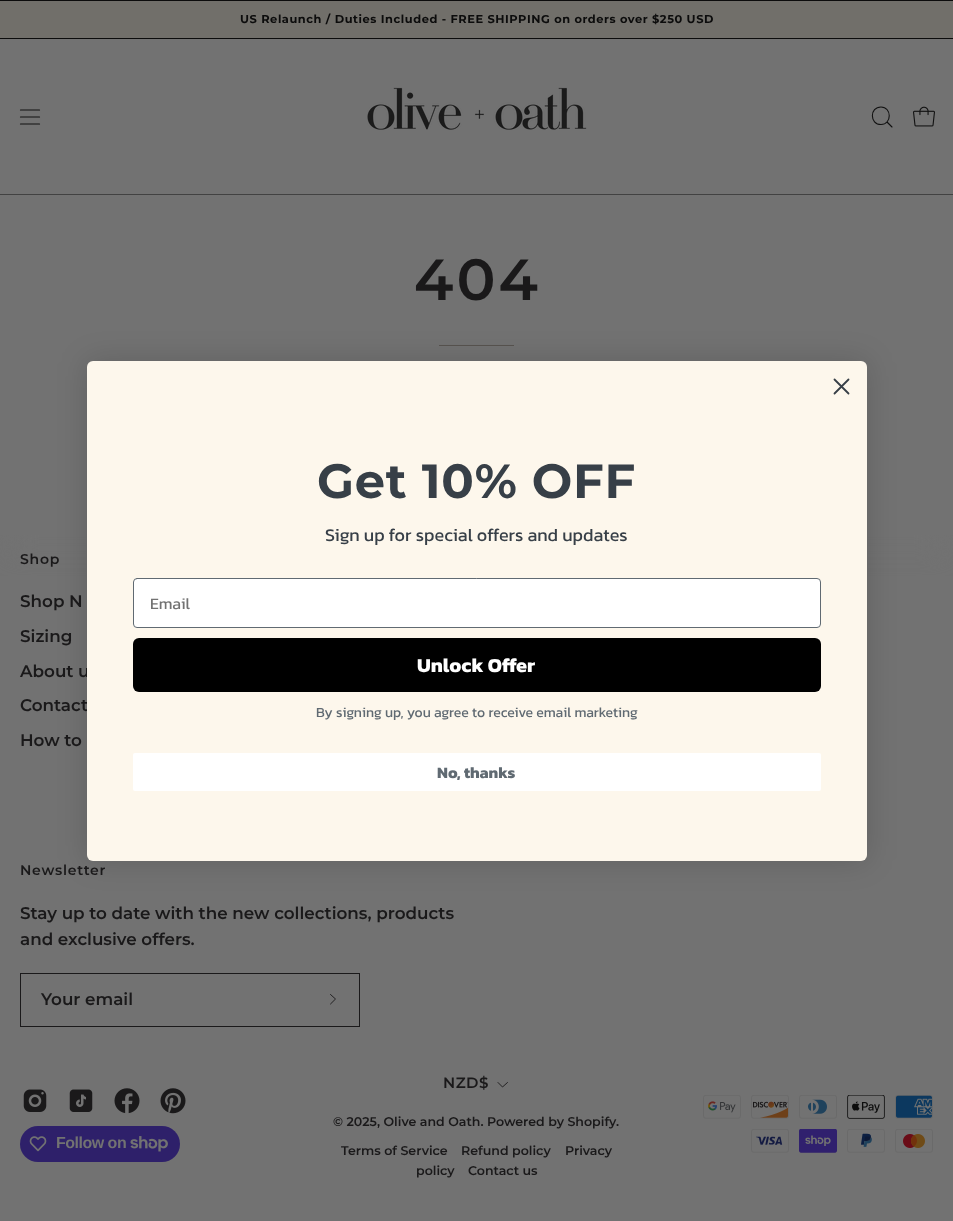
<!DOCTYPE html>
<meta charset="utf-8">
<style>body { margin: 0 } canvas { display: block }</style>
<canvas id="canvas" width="953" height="1221"></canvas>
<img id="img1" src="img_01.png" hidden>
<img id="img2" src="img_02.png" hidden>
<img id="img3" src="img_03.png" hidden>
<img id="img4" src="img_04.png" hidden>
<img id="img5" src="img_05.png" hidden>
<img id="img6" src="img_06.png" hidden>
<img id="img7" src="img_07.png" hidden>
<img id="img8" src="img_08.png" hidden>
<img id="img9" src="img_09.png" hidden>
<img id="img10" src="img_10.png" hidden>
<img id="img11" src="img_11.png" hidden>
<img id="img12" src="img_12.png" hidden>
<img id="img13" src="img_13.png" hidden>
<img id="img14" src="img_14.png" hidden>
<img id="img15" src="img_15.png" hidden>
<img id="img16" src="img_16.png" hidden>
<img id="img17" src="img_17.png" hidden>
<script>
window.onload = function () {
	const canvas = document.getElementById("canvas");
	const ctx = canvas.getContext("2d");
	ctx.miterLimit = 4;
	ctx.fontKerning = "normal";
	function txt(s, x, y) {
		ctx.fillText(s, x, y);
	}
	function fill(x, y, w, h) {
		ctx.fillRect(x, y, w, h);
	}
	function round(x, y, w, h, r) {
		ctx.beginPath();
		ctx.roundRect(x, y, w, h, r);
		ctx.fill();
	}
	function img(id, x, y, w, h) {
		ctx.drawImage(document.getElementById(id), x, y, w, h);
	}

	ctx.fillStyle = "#727272";
	fill(0, 0, 953, 1221);
	ctx.fillStyle = "#716F6A";
	fill(0, 1, 953, 37);
	ctx.fillStyle = "#0C0C0C";
	fill(0, 0, 953, 1);
	fill(0, 38, 953, 1);
	ctx.beginPath();
	ctx.moveTo(20.5, 117);
	ctx.lineTo(39.5, 117);
	ctx.moveTo(20.5, 110);
	ctx.lineTo(39.5, 110);
	ctx.moveTo(20.5, 124);
	ctx.lineTo(39.5, 124);
	ctx.strokeStyle = "#111111";
	ctx.lineWidth = 1.2;
	ctx.lineCap = "round";
	ctx.lineJoin = "round";
	ctx.stroke();
	img("img1", 367, 87, 220, 43);
	ctx.beginPath();
	ctx.moveTo(881, 124.5);
	ctx.bezierCurveTo(892, 124.5, 892, 107, 881, 107);
	ctx.bezierCurveTo(869.5, 107, 869.5, 124.5, 881, 124.5);
	ctx.closePath();
	ctx.moveTo(887, 122);
	ctx.lineTo(892, 127);
	ctx.lineWidth = 1.1;
	ctx.stroke();
	img("img2", 913, 106, 22, 21);
	ctx.save();
	ctx.beginPath();
	ctx.rect(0, 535, 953, 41);
	ctx.clip();
	ctx.fillStyle = "#727272";
	ctx.filter = "blur(12.5px)";
	ctx.beginPath();
	ctx.rect(10, 229, 933, 321);
	ctx.fill();
	ctx.filter = "none";
	ctx.restore();
	ctx.fillStyle = "#424242";
	fill(0, 194, 953, 1);
	ctx.fillStyle = "#57534F";
	fill(439, 345, 75, 1);
	ctx.fillStyle = "rgba(0, 0, 0, 0.15)";
	ctx.filter = "blur(15px)";
	ctx.beginPath();
	ctx.roundRect(87, 361, 780, 500, 6);
	ctx.fill();
	ctx.filter = "none";
	ctx.fillStyle = "#1A191A";
	fill(20, 973, 340, 1);
	fill(20, 1026, 286, 1);
	fill(20, 973, 1, 54);
	fill(359, 973, 1, 54);
	fill(306, 1026, 54, 1);
	ctx.beginPath();
	ctx.moveTo(330.5, 994.5);
	ctx.lineTo(335.5, 999);
	ctx.lineTo(330.5, 1004);
	ctx.strokeStyle = "#1A191A";
	ctx.lineWidth = 0.9;
	ctx.stroke();
	img("img3", 23, 1089, 24, 23);
	img("img4", 69, 1089, 24, 23);
	img("img5", 114, 1088, 26, 26);
	img("img6", 160, 1088, 26, 26);
	ctx.fillStyle = "#2E206A";
	round(20, 1126, 160, 36, 18);
	img("img7", 29, 1136, 18, 16);
	img("img8", 130, 1136, 38, 16);
	ctx.beginPath();
	ctx.moveTo(507.5, 1082.5);
	ctx.lineTo(502.5, 1087);
	ctx.lineTo(498, 1082.5);
	ctx.stroke();
	img("img9", 703, 1095, 38, 24);
	img("img10", 751, 1095, 38, 24);
	img("img11", 799, 1095, 38, 24);
	img("img12", 847, 1095, 38, 24);
	img("img13", 895, 1095, 38, 24);
	img("img14", 751, 1129, 38, 24);
	img("img15", 799, 1129, 38, 24);
	img("img16", 847, 1129, 38, 24);
	img("img17", 895, 1129, 38, 24);
	ctx.letterSpacing = "0.57px";
	ctx.font = "bold 11.4px Montserrat";
	ctx.fillStyle = "#0C0C0C";
	txt("US Relaunch / Duties Included - FREE SHIPPING on orders over $250 USD", 240, 23);
	ctx.letterSpacing = "3px";
	ctx.font = "600 58px Montserrat";
	ctx.fillStyle = "#1A191A";
	txt("404", 414, 300);
	ctx.letterSpacing = "0.75px";
	ctx.font = "600 14px Montserrat";
	txt("Shop", 20, 564);
	ctx.letterSpacing = "0px";
	ctx.font = "600 16.8px Montserrat";
	txt("Shop N", 20, 607);
	txt("Sizing", 20, 642);
	txt("About u", 20, 677);
	txt("Contact", 20, 711);
	ctx.fillStyle = "#FDF7EC";
	round(87, 361, 780, 500, 6);
	ctx.beginPath();
	ctx.moveTo(834.5, 379.5);
	ctx.lineTo(848.5, 393.5);
	ctx.moveTo(834.5, 393.5);
	ctx.lineTo(848.5, 379.5);
	ctx.closePath();
	ctx.strokeStyle = "#373F47";
	ctx.lineWidth = 1.8;
	ctx.stroke();
	ctx.fillStyle = "#FFFFFF";
	round(133, 753, 688, 38, 2);
	ctx.font = "bold 16px Kanit";
	ctx.fillStyle = "#606A72";
	txt("No, thanks", 437, 778);
	ctx.font = "14px Kanit";
	txt("By signing up, you agree to receive email marketing", 316, 717);
	ctx.fillStyle = "#000000";
	round(133, 638, 688, 54, 6);
	ctx.font = "bold 20px Kanit";
	ctx.fillStyle = "#FFFFFF";
	txt("Unlock Offer", 417, 672);
	ctx.beginPath();
	ctx.roundRect(133.5, 578.5, 687, 49, 3.5);
	ctx.fill();
	ctx.strokeStyle = "#606A72";
	ctx.lineWidth = 1;
	ctx.lineJoin = "miter";
	ctx.stroke();
	ctx.font = "16px Kanit";
	ctx.fillStyle = "#727272";
	txt("Email", 150, 609);
	ctx.font = "18px Kanit";
	ctx.fillStyle = "#373F47";
	txt("Sign up for special offers and updates", 325, 541);
	ctx.letterSpacing = "0.75px";
	ctx.font = "bold 48px Montserrat";
	txt("Get 10% OFF", 317, 498);
	ctx.letterSpacing = "0px";
	ctx.font = "600 16.8px Montserrat";
	ctx.fillStyle = "#1A191A";
	txt("How to", 20, 746);
	ctx.letterSpacing = "0.75px";
	ctx.font = "600 14px Montserrat";
	txt("Newsletter", 20, 875);
	ctx.letterSpacing = "0px";
	ctx.font = "600 16.8px Montserrat";
	txt("Stay up to date with the new collections, products", 20, 919);
	txt("and exclusive offers.", 20, 945);
	txt("Your email", 41, 1005);
	ctx.letterSpacing = "-0.5px";
	ctx.font = "bold 16px Liberation Sans";
	ctx.fillStyle = "#727272";
	txt("Follow on", 56, 1148);
	ctx.letterSpacing = "0.5px";
	ctx.font = "600 15px Montserrat";
	ctx.fillStyle = "#1A191A";
	txt("NZD$", 443, 1088);
	ctx.letterSpacing = "0px";
	ctx.font = "600 12.6px Montserrat";
	txt("© 2025, Olive and Oath. Powered by Shopify", 333, 1126);
	txt(".", 616, 1126);
	txt("Terms of Service", 341, 1155);
	txt("Refund policy", 461, 1155);
	txt("Privacy", 565, 1155);
	txt("policy", 416, 1175);
	txt("Contact us", 468, 1175);
};
</script>
